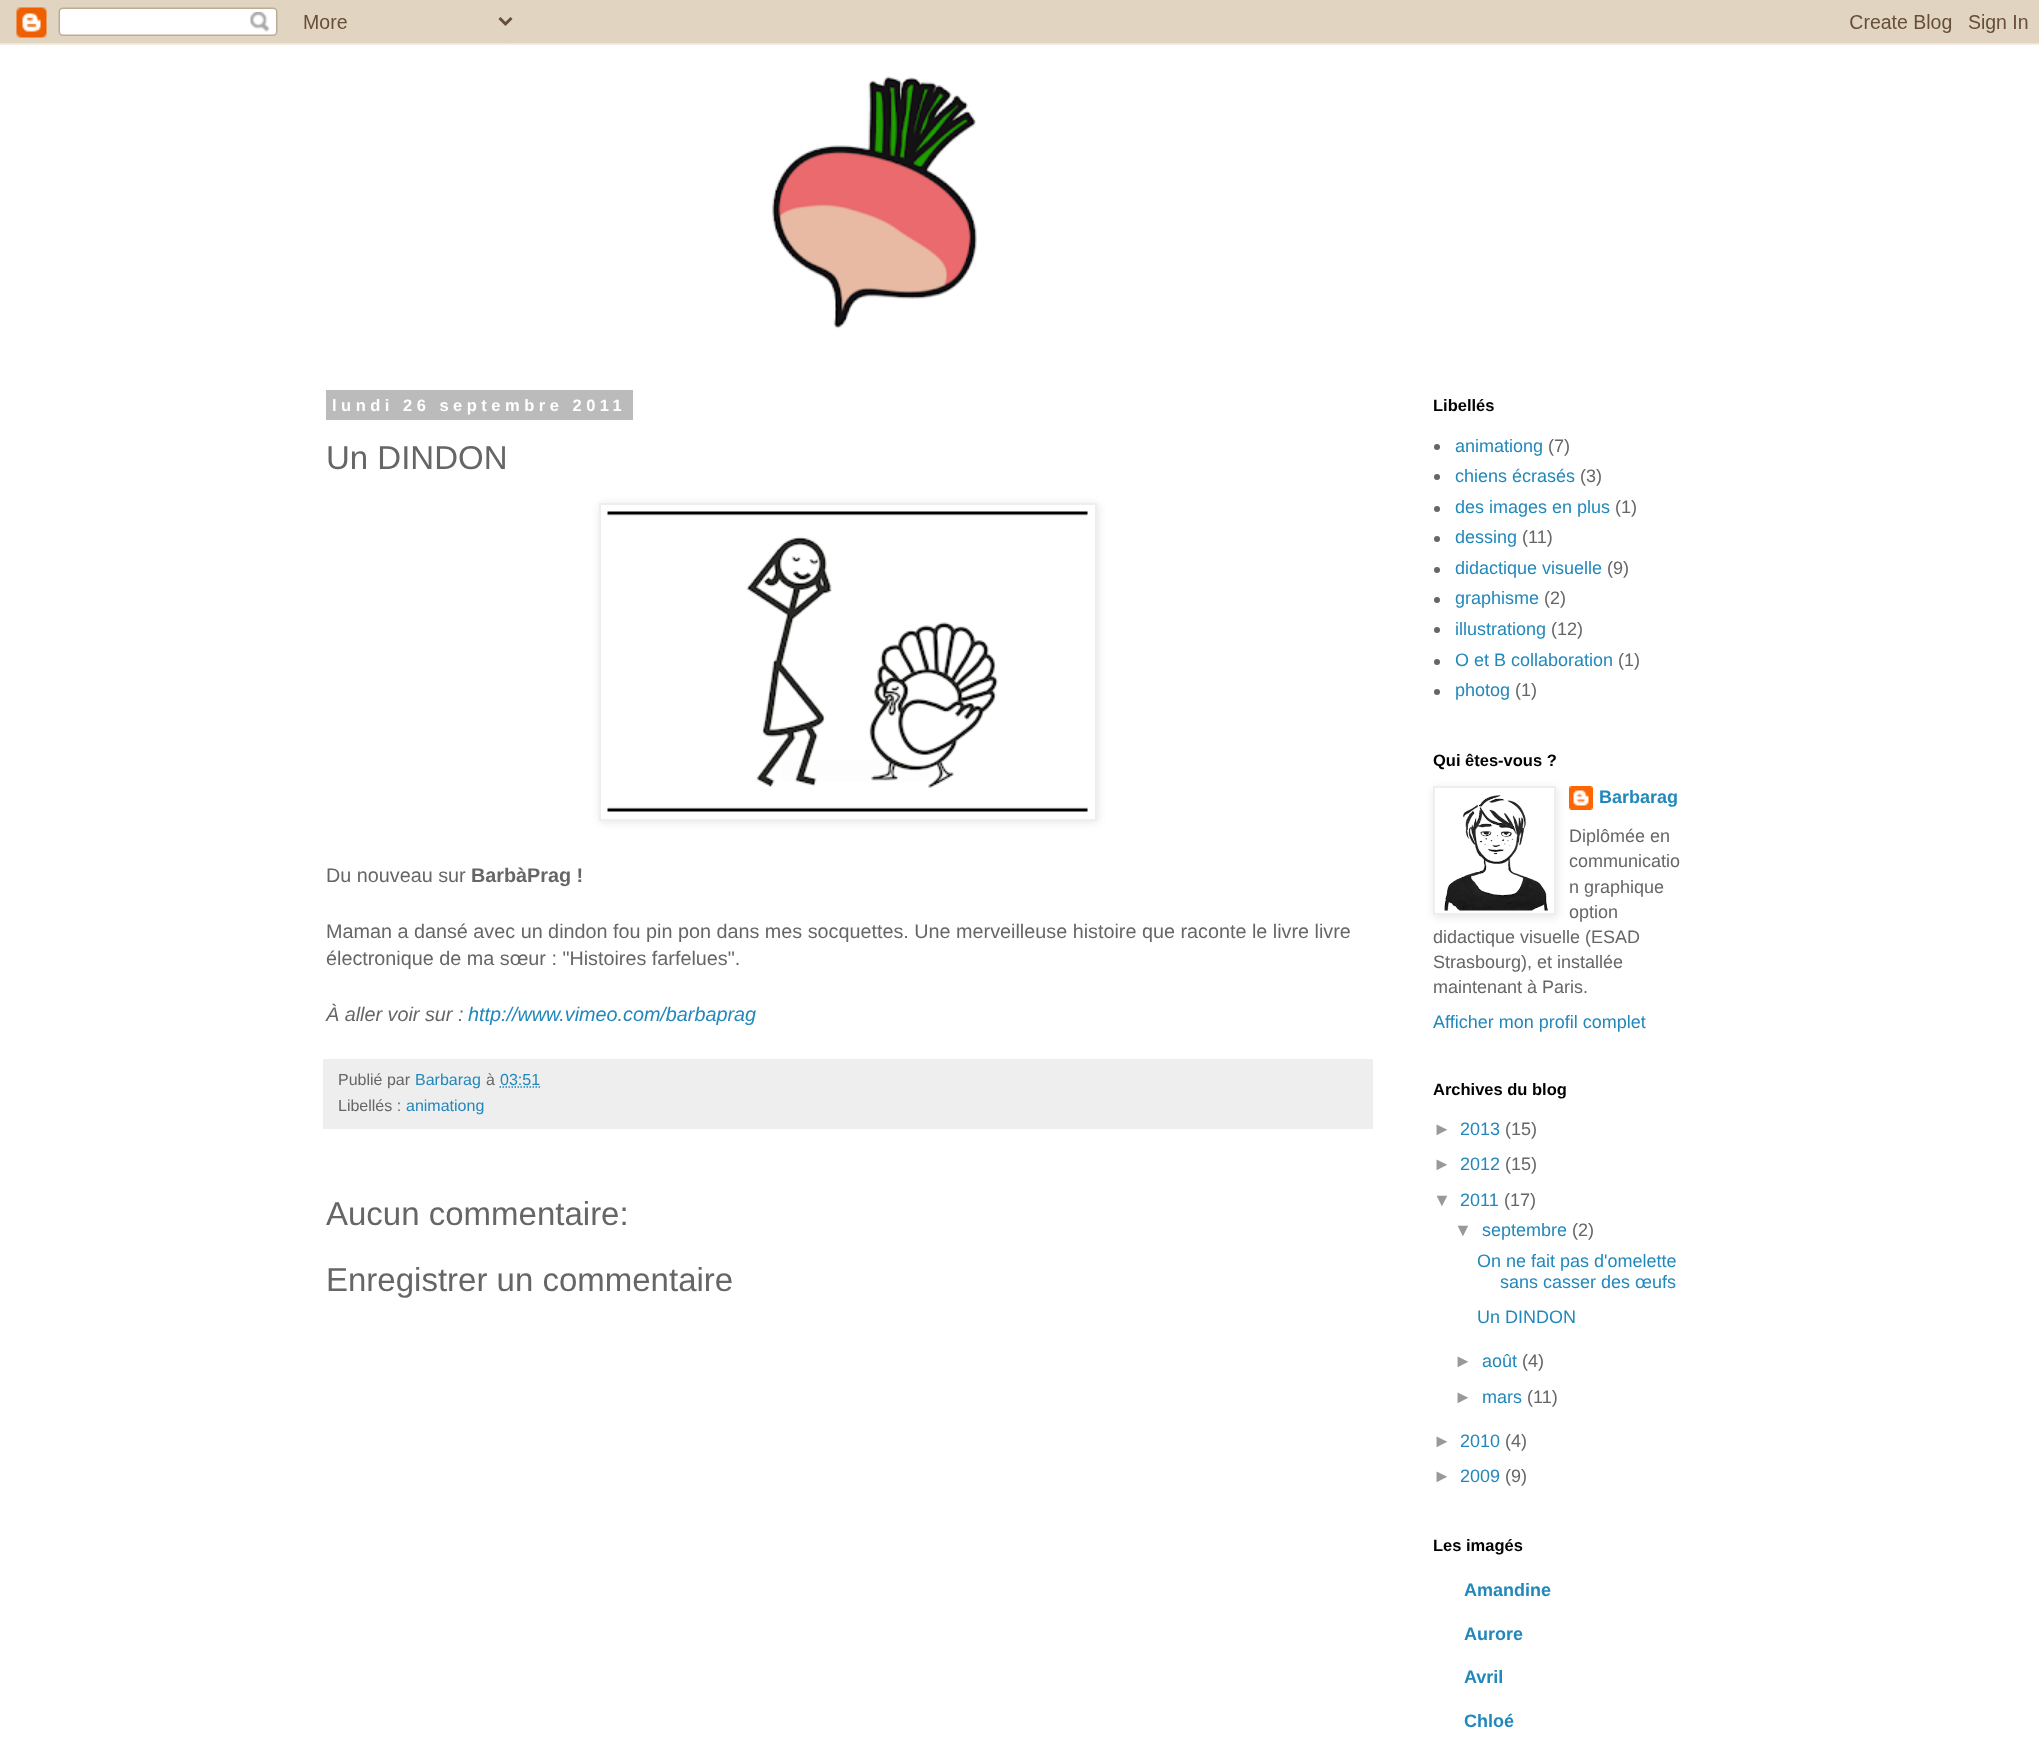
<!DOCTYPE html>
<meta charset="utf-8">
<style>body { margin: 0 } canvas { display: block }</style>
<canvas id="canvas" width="2039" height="1763"></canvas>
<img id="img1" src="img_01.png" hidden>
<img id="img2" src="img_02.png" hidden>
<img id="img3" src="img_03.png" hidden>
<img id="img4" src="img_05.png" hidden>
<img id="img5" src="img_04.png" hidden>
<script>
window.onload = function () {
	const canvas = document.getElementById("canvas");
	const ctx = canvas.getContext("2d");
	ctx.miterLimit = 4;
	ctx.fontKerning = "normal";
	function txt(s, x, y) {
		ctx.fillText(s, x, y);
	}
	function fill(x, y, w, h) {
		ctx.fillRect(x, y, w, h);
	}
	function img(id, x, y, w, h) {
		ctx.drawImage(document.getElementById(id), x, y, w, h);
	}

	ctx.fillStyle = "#FFFFFF";
	fill(0, 0, 2039, 1763);
	img("img1", 0, 0, 2039, 45);
	img("img2", 772, 76, 205, 253);
	ctx.fillStyle = "#BBBBBB";
	fill(326, 390, 307, 30);
	ctx.fillStyle = "rgba(0, 0, 0, 0.1)";
	ctx.filter = "blur(4px)";
	ctx.beginPath();
	ctx.rect(600, 504, 498, 318);
	ctx.fill();
	ctx.filter = "none";
	ctx.fillStyle = "#FFFFFF";
	ctx.beginPath();
	ctx.rect(600, 504, 496, 316);
	ctx.fill();
	ctx.strokeStyle = "#EEEEEE";
	ctx.lineWidth = 2;
	ctx.stroke();
	img("img3", 607, 511, 481, 301);
	ctx.fillStyle = "#EEEEEE";
	fill(323, 1059, 1050, 70);
	ctx.beginPath();
	ctx.moveTo(499.5, 1087);
	ctx.lineTo(540, 1087);
	ctx.strokeStyle = "#2288BB";
	ctx.lineWidth = 1.5;
	ctx.setLineDash([1.5, 1.5]);
	ctx.stroke();
	ctx.fillStyle = "#666666";
	ctx.beginPath();
	ctx.arc(1437, 447, 3, 0, Math.PI * 2);
	ctx.fill();
	ctx.beginPath();
	ctx.arc(1437, 477, 3, 0, Math.PI * 2);
	ctx.fill();
	ctx.beginPath();
	ctx.arc(1437, 509, 3, 0, Math.PI * 2);
	ctx.fill();
	ctx.beginPath();
	ctx.arc(1437, 539, 3, 0, Math.PI * 2);
	ctx.fill();
	ctx.beginPath();
	ctx.arc(1437, 570, 3, 0, Math.PI * 2);
	ctx.fill();
	ctx.beginPath();
	ctx.arc(1437, 600, 3, 0, Math.PI * 2);
	ctx.fill();
	ctx.beginPath();
	ctx.arc(1437, 630, 3, 0, Math.PI * 2);
	ctx.fill();
	ctx.beginPath();
	ctx.arc(1437, 662, 3, 0, Math.PI * 2);
	ctx.fill();
	ctx.beginPath();
	ctx.arc(1437, 692, 3, 0, Math.PI * 2);
	ctx.fill();
	img("img4", 1569, 786, 24, 24);
	ctx.fillStyle = "rgba(0, 0, 0, 0.1)";
	ctx.filter = "blur(4px)";
	ctx.beginPath();
	ctx.rect(1434, 788, 123, 129);
	ctx.fill();
	ctx.filter = "none";
	ctx.fillStyle = "#FFFFFF";
	ctx.beginPath();
	ctx.rect(1434, 787, 121, 127);
	ctx.fill();
	ctx.strokeStyle = "#EEEEEE";
	ctx.lineWidth = 2;
	ctx.setLineDash([]);
	ctx.stroke();
	img("img5", 1444, 795, 104, 116);
	ctx.letterSpacing = "4.5px";
	ctx.font = "bold 16.5px Liberation Sans";
	txt("lundi 26 septembre 2011", 332, 411);
	ctx.letterSpacing = "0px";
	ctx.font = "33px Liberation Sans";
	ctx.fillStyle = "#666666";
	txt("Un DINDON", 326, 469);
	ctx.font = "19.8px Liberation Sans";
	txt("Du nouveau sur", 326, 882);
	ctx.font = "bold 19.8px Liberation Sans";
	txt("BarbàPrag !", 471, 882);
	ctx.font = "19.8px Liberation Sans";
	txt("Maman a dansé avec un dindon fou pin pon dans mes socquettes. Une merveilleuse histoire que raconte le livre livre", 326, 938);
	txt("électronique de ma sœur : \"Histoires farfelues\".", 326, 965);
	ctx.font = "italic 19.8px Liberation Sans";
	txt("À aller voir sur :", 326, 1021);
	ctx.fillStyle = "#2288BB";
	txt("http://www.vimeo.com/barbaprag", 468, 1021);
	ctx.font = "16px Liberation Sans";
	ctx.fillStyle = "#666666";
	txt("Publié par", 338, 1085);
	ctx.fillStyle = "#2288BB";
	txt("Barbarag", 415, 1085);
	ctx.fillStyle = "#666666";
	txt("à", 486, 1085);
	ctx.fillStyle = "#2288BB";
	txt("03:51", 500, 1085);
	ctx.fillStyle = "#666666";
	txt("Libellés :", 338, 1111);
	ctx.fillStyle = "#2288BB";
	txt("animationg", 406, 1111);
	ctx.font = "33px Liberation Sans";
	ctx.fillStyle = "#666666";
	txt("Aucun commentaire:", 326, 1225);
	txt("Enregistrer un commentaire", 326, 1291);
	ctx.font = "bold 16.5px Liberation Sans";
	ctx.fillStyle = "#000000";
	txt("Libellés", 1433, 411);
	ctx.font = "18px Liberation Sans";
	ctx.fillStyle = "#2288BB";
	txt("animationg", 1455, 452);
	ctx.fillStyle = "#666666";
	txt("(7)", 1548, 452);
	ctx.fillStyle = "#2288BB";
	txt("chiens écrasés", 1455, 482);
	ctx.fillStyle = "#666666";
	txt("(3)", 1580, 482);
	ctx.fillStyle = "#2288BB";
	txt("des images en plus", 1455, 513);
	ctx.fillStyle = "#666666";
	txt("(1)", 1615, 513);
	ctx.fillStyle = "#2288BB";
	txt("dessing", 1455, 543);
	ctx.fillStyle = "#666666";
	txt("(11)", 1522, 543);
	ctx.fillStyle = "#2288BB";
	txt("didactique visuelle", 1455, 574);
	ctx.fillStyle = "#666666";
	txt("(9)", 1607, 574);
	ctx.fillStyle = "#2288BB";
	txt("graphisme", 1455, 604);
	ctx.fillStyle = "#666666";
	txt("(2)", 1544, 604);
	ctx.fillStyle = "#2288BB";
	txt("illustrationg", 1455, 635);
	ctx.fillStyle = "#666666";
	txt("(12)", 1551, 635);
	ctx.fillStyle = "#2288BB";
	txt("O et B collaboration", 1455, 666);
	ctx.fillStyle = "#666666";
	txt("(1)", 1618, 666);
	ctx.fillStyle = "#2288BB";
	txt("photog", 1455, 696);
	ctx.fillStyle = "#666666";
	txt("(1)", 1515, 696);
	ctx.font = "bold 16.5px Liberation Sans";
	ctx.fillStyle = "#000000";
	txt("Qui êtes-vous ?", 1433, 766);
	ctx.font = "bold 18px Liberation Sans";
	ctx.fillStyle = "#2288BB";
	txt("Barbarag", 1599, 803);
	ctx.font = "18px Liberation Sans";
	ctx.fillStyle = "#666666";
	txt("Diplômée en", 1569, 842);
	txt("communicatio", 1569, 867);
	txt("n graphique", 1569, 893);
	txt("option", 1569, 918);
	txt("didactique visuelle (ESAD", 1433, 943);
	txt("Strasbourg), et installée", 1433, 968);
	txt("maintenant à Paris.", 1433, 993);
	ctx.fillStyle = "#2288BB";
	txt("Afficher mon profil complet", 1433, 1028);
	ctx.font = "bold 16.5px Liberation Sans";
	ctx.fillStyle = "#000000";
	txt("Archives du blog", 1433, 1095);
	ctx.font = "18px Liberation Sans";
	ctx.fillStyle = "#999999";
	txt("►", 1433, 1135);
	ctx.fillStyle = "#2288BB";
	txt("2013", 1460, 1135);
	ctx.fillStyle = "#666666";
	txt("(15)", 1505, 1135);
	ctx.fillStyle = "#999999";
	txt("►", 1433, 1170);
	ctx.fillStyle = "#2288BB";
	txt("2012", 1460, 1170);
	ctx.fillStyle = "#666666";
	txt("(15)", 1505, 1170);
	ctx.fillStyle = "#999999";
	txt("▼", 1433, 1206);
	ctx.fillStyle = "#2288BB";
	txt("2011", 1460, 1206);
	ctx.fillStyle = "#666666";
	txt("(17)", 1504, 1206);
	ctx.fillStyle = "#999999";
	txt("▼", 1454, 1236);
	ctx.fillStyle = "#2288BB";
	txt("septembre", 1482, 1236);
	ctx.fillStyle = "#666666";
	txt("(2)", 1572, 1236);
	ctx.fillStyle = "#2288BB";
	txt("On ne fait pas d'omelette", 1477, 1267);
	txt("sans casser des œufs", 1500, 1288);
	txt("Un DINDON", 1477, 1323);
	ctx.fillStyle = "#999999";
	txt("►", 1454, 1367);
	ctx.fillStyle = "#2288BB";
	txt("août", 1482, 1367);
	ctx.fillStyle = "#666666";
	txt("(4)", 1522, 1367);
	ctx.fillStyle = "#999999";
	txt("►", 1454, 1403);
	ctx.fillStyle = "#2288BB";
	txt("mars", 1482, 1403);
	ctx.fillStyle = "#666666";
	txt("(11)", 1527, 1403);
	ctx.fillStyle = "#999999";
	txt("►", 1433, 1447);
	ctx.fillStyle = "#2288BB";
	txt("2010", 1460, 1447);
	ctx.fillStyle = "#666666";
	txt("(4)", 1505, 1447);
	ctx.fillStyle = "#999999";
	txt("►", 1433, 1482);
	ctx.fillStyle = "#2288BB";
	txt("2009", 1460, 1482);
	ctx.fillStyle = "#666666";
	txt("(9)", 1505, 1482);
	ctx.font = "bold 16.5px Liberation Sans";
	ctx.fillStyle = "#000000";
	txt("Les imagés", 1433, 1551);
	ctx.font = "bold 18px Liberation Sans";
	ctx.fillStyle = "#2288BB";
	txt("Amandine", 1464, 1596);
	txt("Aurore", 1464, 1640);
	txt("Avril", 1464, 1683);
	txt("Chloé", 1464, 1727);
};
</script>
